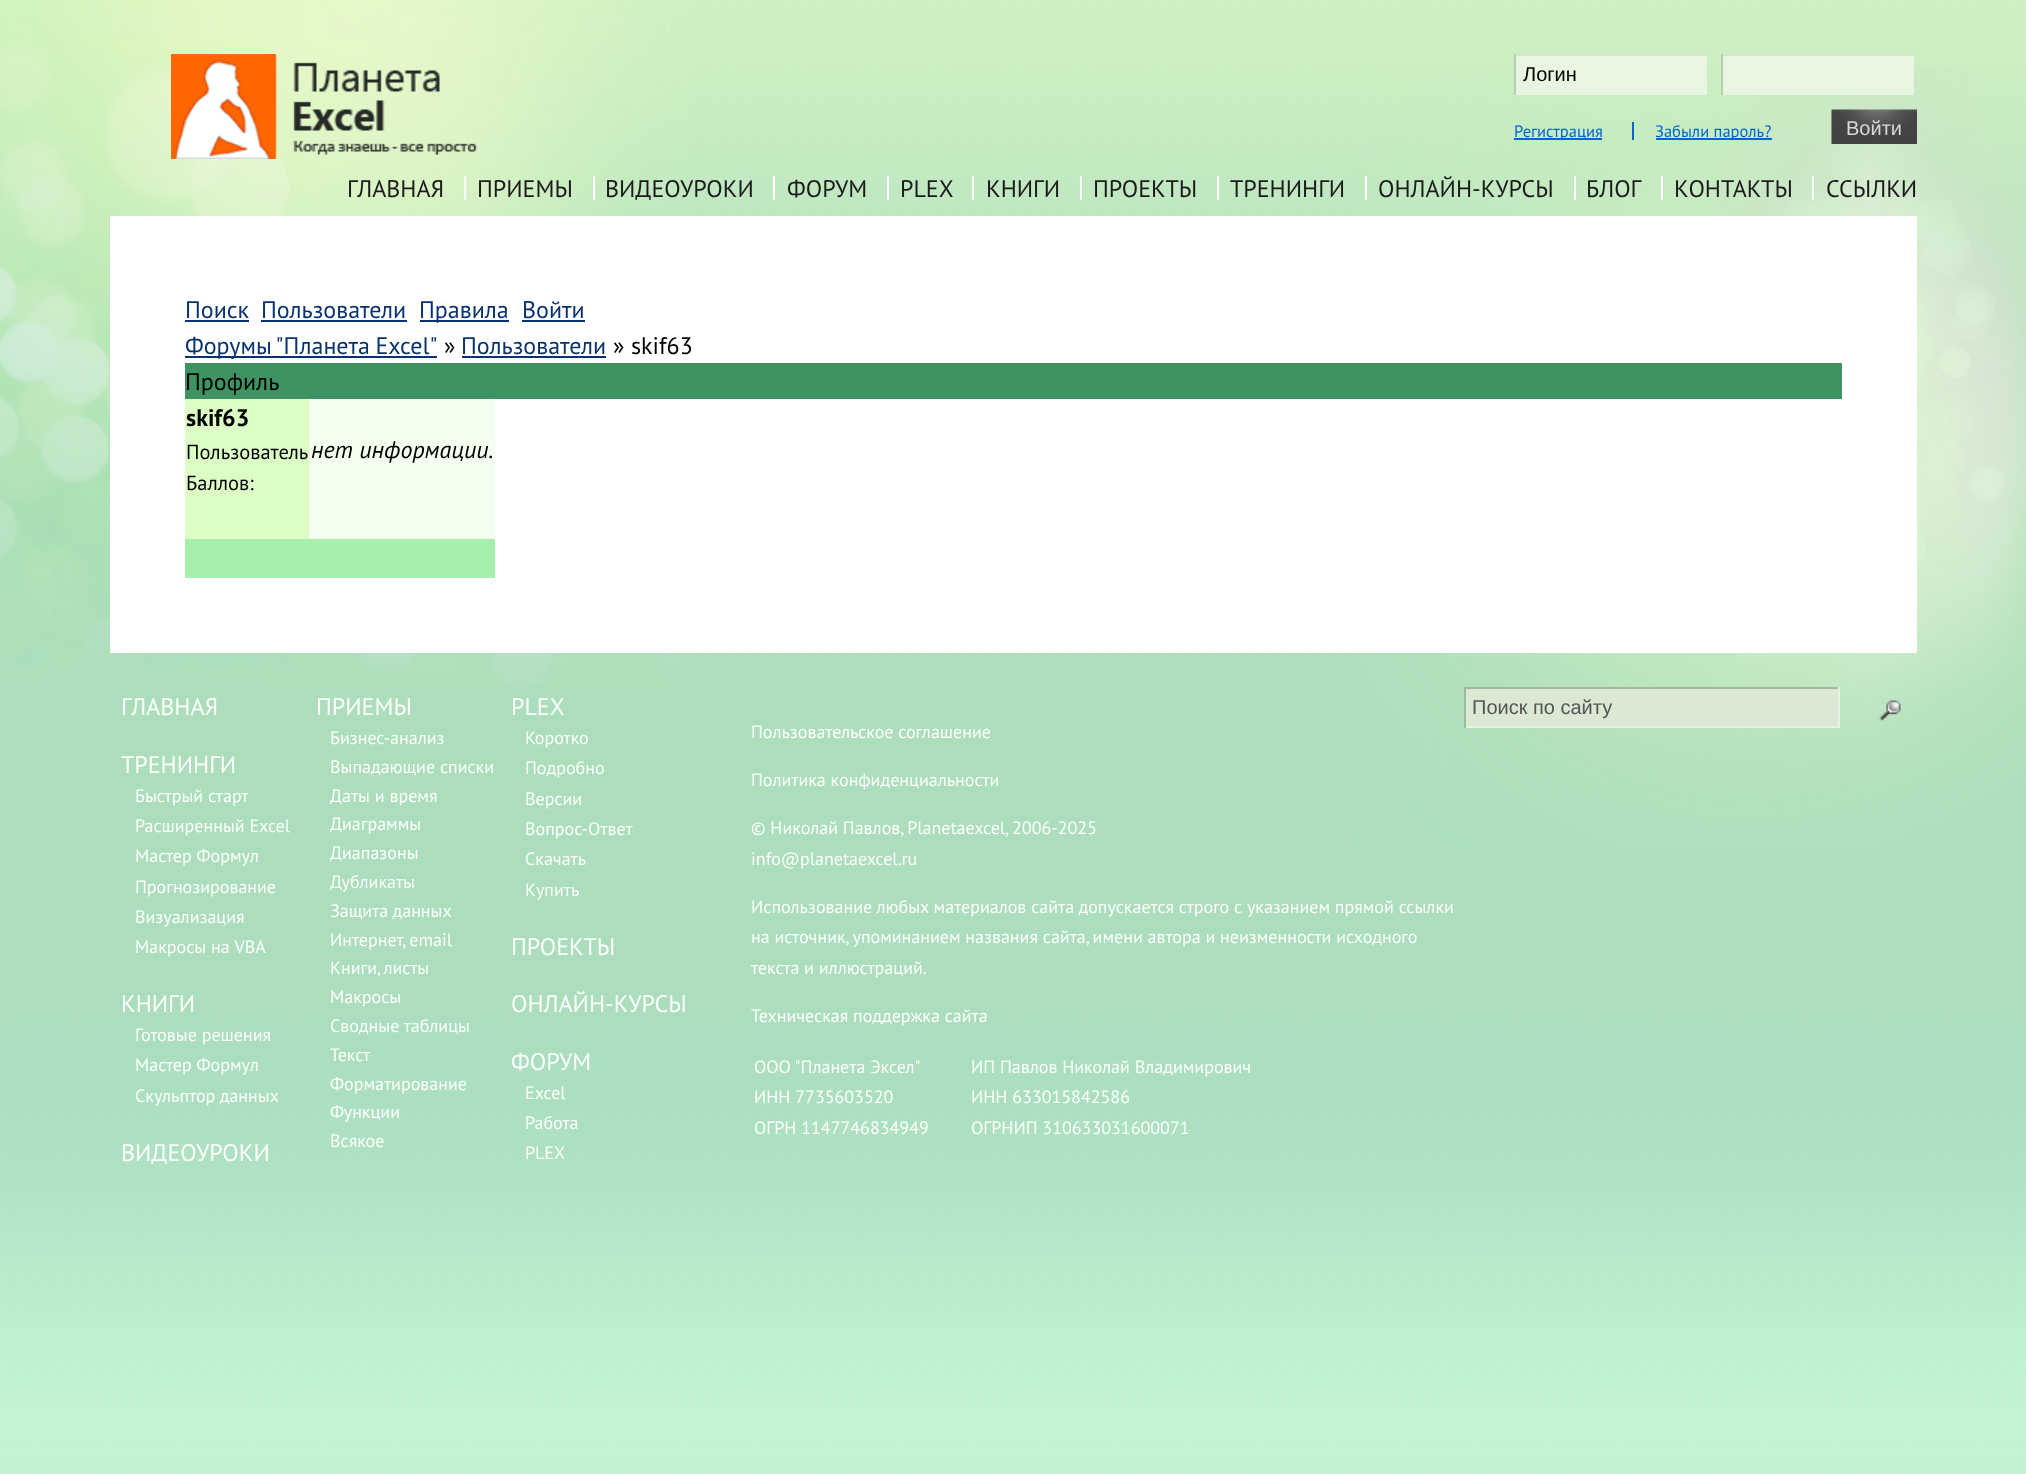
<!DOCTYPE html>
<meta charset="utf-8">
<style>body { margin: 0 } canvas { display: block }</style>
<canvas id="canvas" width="2026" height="1474"></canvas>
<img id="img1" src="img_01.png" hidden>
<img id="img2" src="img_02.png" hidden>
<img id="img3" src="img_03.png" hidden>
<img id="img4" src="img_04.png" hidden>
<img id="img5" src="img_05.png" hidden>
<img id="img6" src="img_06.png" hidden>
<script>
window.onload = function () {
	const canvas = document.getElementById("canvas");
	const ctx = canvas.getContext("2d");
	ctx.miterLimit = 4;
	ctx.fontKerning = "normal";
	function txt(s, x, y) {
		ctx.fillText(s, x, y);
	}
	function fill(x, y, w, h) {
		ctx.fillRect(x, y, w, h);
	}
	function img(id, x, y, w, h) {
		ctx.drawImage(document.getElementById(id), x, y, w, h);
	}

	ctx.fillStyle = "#FFFFFF";
	fill(0, 0, 2026, 1474);
	img("img1", 0, 0, 2026, 1474);
	img("img2", 0, 0, 693, 688);
	img("img3", 1352, 68, 674, 781);
	img("img4", 171, 54, 307, 105);
	ctx.fillStyle = "#E8F5E1";
	fill(1516, 56, 191, 39);
	ctx.fillStyle = "#D4E5CD";
	fill(1514, 54, 193, 2);
	ctx.fillStyle = "#B8CFB2";
	fill(1514, 54, 2, 41);
	ctx.fillStyle = "#E8F5E1";
	fill(1723, 56, 191, 39);
	ctx.fillStyle = "#D4E5CD";
	fill(1721, 54, 193, 2);
	ctx.fillStyle = "#B8CFB2";
	fill(1721, 54, 2, 41);
	ctx.fillStyle = "#0067D1";
	fill(1514, 138, 88, 2);
	fill(1632, 122, 2, 18);
	fill(1656, 138, 116, 2);
	img("img5", 1831, 109, 86, 35);
	ctx.fillStyle = "#FFFFFF";
	fill(464, 176, 2, 24);
	fill(593, 176, 2, 24);
	fill(773, 176, 2, 24);
	fill(887, 176, 2, 24);
	fill(972, 176, 2, 24);
	fill(1080, 176, 2, 24);
	fill(1217, 176, 2, 24);
	fill(1365, 176, 2, 24);
	fill(1574, 176, 2, 24);
	fill(1661, 176, 2, 24);
	fill(1812, 176, 2, 24);
	fill(110, 216, 1807, 437);
	ctx.fillStyle = "#093270";
	fill(185, 320, 64, 2);
	fill(261, 320, 146, 2);
	fill(420, 320, 89, 2);
	fill(522, 320, 63, 2);
	fill(185, 356, 252, 2);
	fill(462, 356, 144, 2);
	ctx.fillStyle = "#3F9262";
	fill(185, 363, 1657, 36);
	ctx.fillStyle = "#DCFDC3";
	fill(185, 399, 124, 140);
	ctx.fillStyle = "#F5FFEF";
	fill(309, 399, 186, 140);
	ctx.fillStyle = "#A7EFAC";
	fill(185, 539, 310, 39);
	ctx.fillStyle = "#DBE8D4";
	fill(1466, 689, 372, 37);
	ctx.fillStyle = "#A0B99A";
	fill(1464, 687, 375, 2);
	ctx.fillStyle = "#E9F1E5";
	fill(1838, 687, 2, 41);
	fill(1464, 726, 375, 2);
	ctx.fillStyle = "#A0B99A";
	fill(1464, 687, 2, 41);
	img("img6", 1879, 700, 22, 21);
	ctx.font = "20px Liberation Sans";
	ctx.fillStyle = "#000000";
	txt("Логин", 1523, 81);
	ctx.font = "16.5px PT Sans";
	ctx.fillStyle = "#0067D1";
	txt("Регистрация", 1514, 137);
	txt("Забыли пароль?", 1655, 137);
	ctx.font = "20px Liberation Sans";
	ctx.fillStyle = "#D8D8D8";
	txt("Войти", 1846, 135);
	ctx.font = "24px PT Sans";
	ctx.fillStyle = "#1B1B1B";
	txt("ГЛАВНАЯ", 347, 197);
	txt("ПРИЕМЫ", 477, 197);
	txt("ВИДЕОУРОКИ", 605, 197);
	txt("ФОРУМ", 787, 197);
	txt("PLEX", 900, 197);
	txt("КНИГИ", 986, 197);
	txt("ПРОЕКТЫ", 1093, 197);
	txt("ТРЕНИНГИ", 1230, 197);
	txt("ОНЛАЙН-КУРСЫ", 1378, 197);
	txt("БЛОГ", 1586, 197);
	txt("КОНТАКТЫ", 1674, 197);
	txt("ССЫЛКИ", 1826, 197);
	ctx.fillStyle = "#093270";
	txt("Поиск", 185, 318);
	txt("Пользователи", 261, 318);
	txt("Правила", 419, 318);
	txt("Войти", 522, 318);
	ctx.wordSpacing = "-1px";
	txt("Форумы \"Планета Excel\"", 185, 354);
	ctx.wordSpacing = "0px";
	ctx.fillStyle = "#000000";
	txt("»", 444, 354);
	ctx.fillStyle = "#093270";
	txt("Пользователи", 461, 354);
	ctx.fillStyle = "#000000";
	txt("» skif63", 613, 354);
	txt("Профиль", 185, 390);
	ctx.font = "bold 24px PT Sans";
	txt("skif63", 186, 426);
	ctx.font = "20.5px PT Sans";
	txt("Пользователь", 186, 459);
	txt("Баллов:", 186, 490);
	ctx.font = "italic 24px PT Sans";
	txt("нет информации.", 311, 458);
	ctx.font = "24px PT Sans";
	ctx.fillStyle = "#FCFFFC";
	txt("ГЛАВНАЯ", 121, 715);
	txt("ТРЕНИНГИ", 121, 773);
	ctx.font = "18px PT Sans";
	txt("Быстрый старт", 135, 802);
	txt("Расширенный Excel", 135, 832);
	txt("Мастер Формул", 135, 862);
	txt("Прогнозирование", 135, 893);
	txt("Визуализация", 135, 923);
	txt("Макросы на VBA", 135, 953);
	ctx.font = "24px PT Sans";
	txt("КНИГИ", 121, 1012);
	ctx.font = "18px PT Sans";
	txt("Готовые решения", 135, 1041);
	txt("Мастер Формул", 135, 1071);
	txt("Скульптор данных", 135, 1102);
	ctx.font = "24px PT Sans";
	txt("ВИДЕОУРОКИ", 121, 1161);
	txt("ПРИЕМЫ", 316, 715);
	ctx.font = "18px PT Sans";
	txt("Бизнес-анализ", 330, 744);
	txt("Выпадающие списки", 330, 773);
	txt("Даты и время", 330, 802);
	txt("Диаграммы", 330, 830);
	txt("Диапазоны", 330, 859);
	txt("Дубликаты", 330, 888);
	txt("Защита данных", 330, 917);
	txt("Интернет, email", 330, 946);
	txt("Книги, листы", 330, 974);
	txt("Макросы", 330, 1003);
	txt("Сводные таблицы", 330, 1032);
	txt("Текст", 330, 1061);
	txt("Форматирование", 330, 1090);
	txt("Функции", 330, 1118);
	txt("Всякое", 330, 1147);
	ctx.font = "24px PT Sans";
	txt("PLEX", 511, 715);
	ctx.font = "18px PT Sans";
	txt("Коротко", 525, 744);
	txt("Подробно", 525, 774);
	txt("Версии", 525, 805);
	txt("Вопрос-Ответ", 525, 835);
	txt("Скачать", 525, 865);
	txt("Купить", 525, 896);
	ctx.font = "24px PT Sans";
	txt("ПРОЕКТЫ", 511, 955);
	txt("ОНЛАЙН-КУРСЫ", 511, 1012);
	txt("ФОРУМ", 511, 1070);
	ctx.font = "18px PT Sans";
	txt("Excel", 525, 1099);
	txt("Работа", 525, 1129);
	txt("PLEX", 525, 1159);
	txt("Пользовательское соглашение", 751, 738);
	txt("Политика конфиденциальности", 751, 786);
	txt("© Николай Павлов, Planetaexcel, 2006-2025", 751, 834);
	txt("info@planetaexcel.ru", 751, 865);
	txt("Использование любых материалов сайта допускается строго с указанием прямой ссылки", 751, 913);
	txt("на источник, упоминанием названия сайта, имени автора и неизменности исходного", 751, 943);
	txt("текста и иллюстраций.", 751, 974);
	txt("Техническая поддержка сайта", 751, 1022);
	txt("ООО \"Планета Эксел\"", 754, 1073);
	txt("ИНН 7735603520", 754, 1103);
	txt("ОГРН 1147746834949", 754, 1134);
	txt("ИП Павлов Николай Владимирович", 971, 1073);
	txt("ИНН 633015842586", 971, 1103);
	txt("ОГРНИП 310633031600071", 971, 1134);
	ctx.font = "20px Liberation Sans";
	ctx.fillStyle = "#545454";
	txt("Поиск по сайту", 1472, 714);
};
</script>
